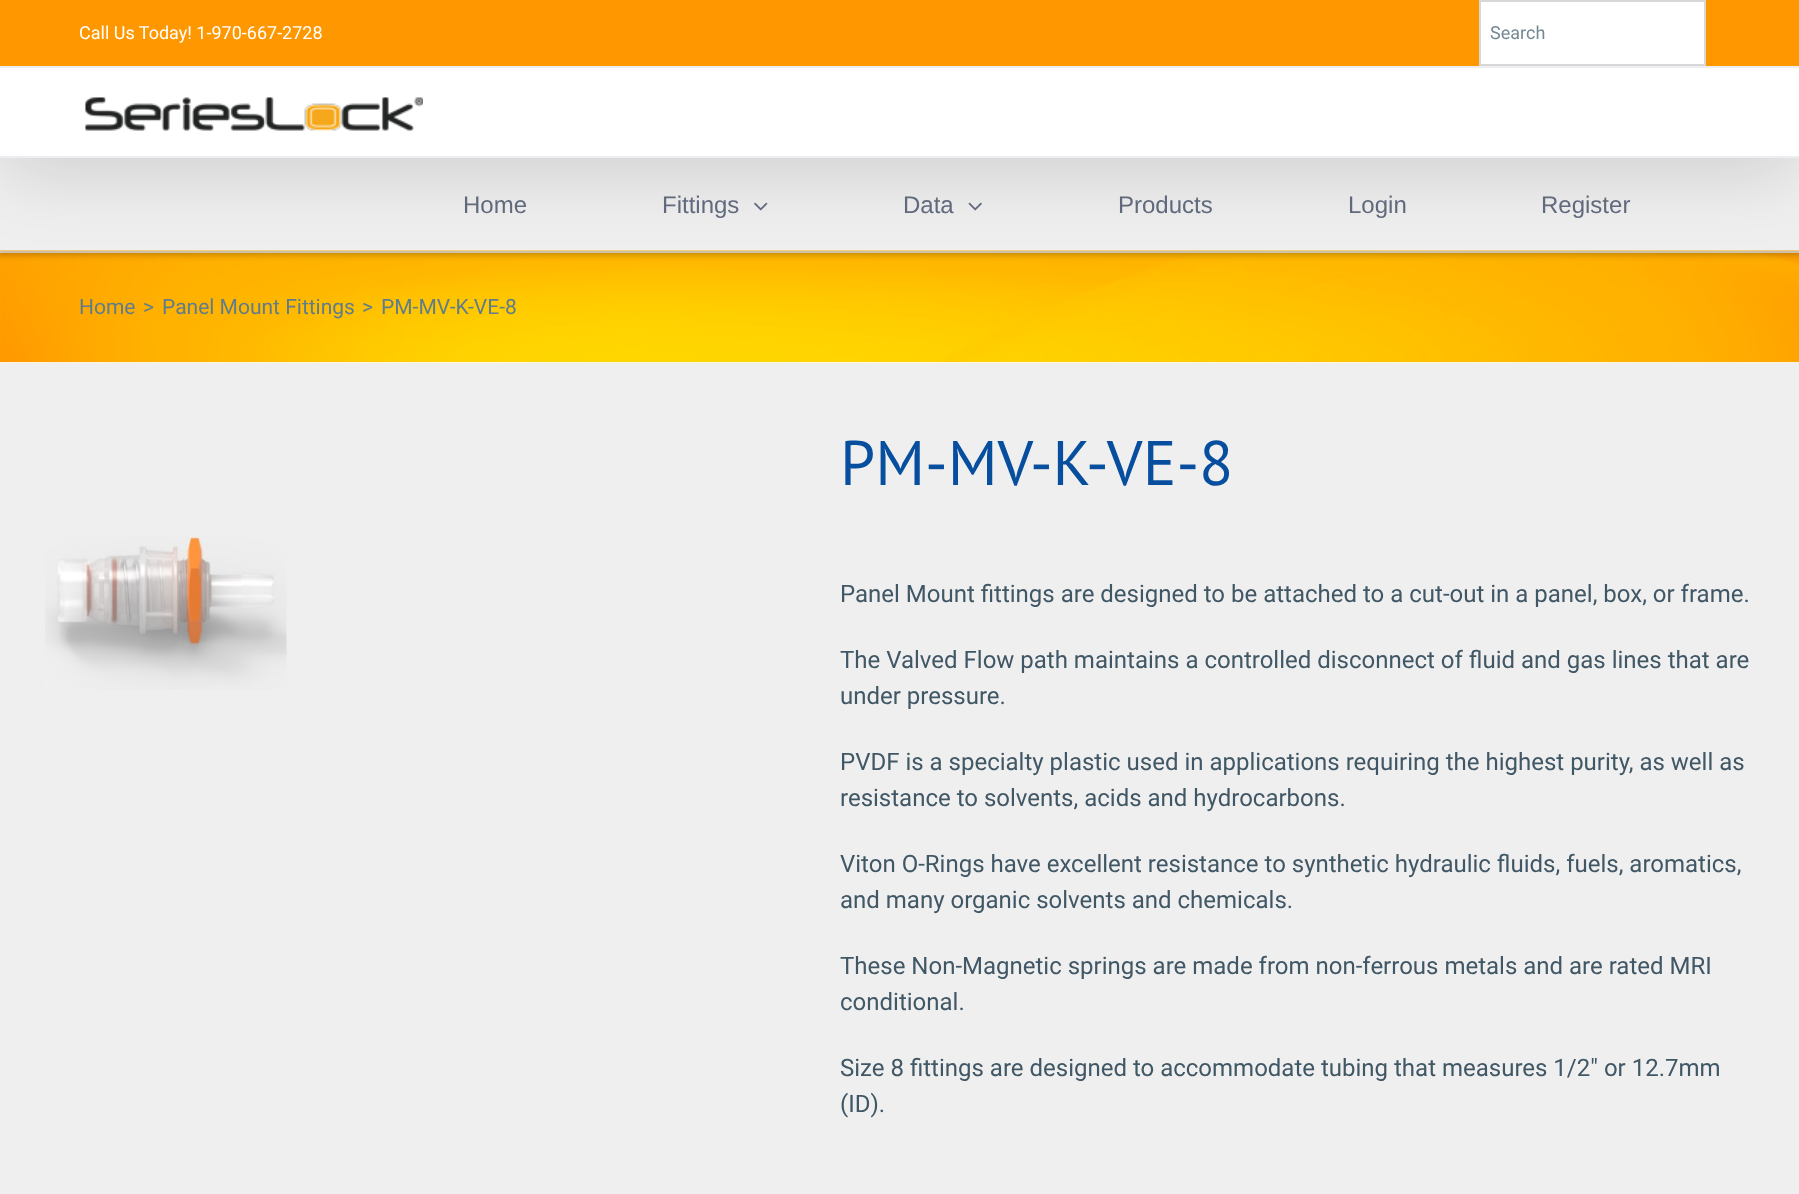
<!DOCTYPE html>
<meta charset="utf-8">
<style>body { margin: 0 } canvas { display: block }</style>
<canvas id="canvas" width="1799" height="1194"></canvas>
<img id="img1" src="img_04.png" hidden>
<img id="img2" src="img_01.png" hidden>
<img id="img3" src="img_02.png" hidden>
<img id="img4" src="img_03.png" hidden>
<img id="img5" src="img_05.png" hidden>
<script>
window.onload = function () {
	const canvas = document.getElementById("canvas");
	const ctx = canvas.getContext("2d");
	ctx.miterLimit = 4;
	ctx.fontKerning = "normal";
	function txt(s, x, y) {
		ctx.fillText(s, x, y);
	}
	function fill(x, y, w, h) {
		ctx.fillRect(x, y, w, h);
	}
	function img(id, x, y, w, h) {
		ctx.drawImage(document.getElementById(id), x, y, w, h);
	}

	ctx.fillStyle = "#F0EFF0";
	fill(0, 0, 1799, 1194);
	img("img1", 0, 250, 1799, 113);
	ctx.fillStyle = "rgba(255, 255, 255, 0.86)";
	fill(0, 251, 1799, 2);
	ctx.save();
	ctx.beginPath();
	ctx.moveTo(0, 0);
	ctx.lineTo(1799, 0);
	ctx.lineTo(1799, 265);
	ctx.lineTo(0, 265);
	ctx.closePath();
	ctx.moveTo(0, 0);
	ctx.lineTo(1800, 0);
	ctx.lineTo(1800, 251);
	ctx.lineTo(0, 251);
	ctx.closePath();
	ctx.clip("evenodd");
	ctx.fillStyle = "rgba(0, 0, 0, 0.25)";
	ctx.filter = "blur(3px)";
	ctx.beginPath();
	ctx.rect(-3, -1, 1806, 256);
	ctx.fill();
	ctx.filter = "none";
	ctx.restore();
	ctx.fillStyle = "rgba(0, 0, 0, 0.14)";
	ctx.filter = "blur(37.5px)";
	ctx.beginPath();
	ctx.rect(3, 18, 1794, 152);
	ctx.fill();
	ctx.filter = "none";
	ctx.fillStyle = "#FF9800";
	fill(0, 0, 1799, 66);
	ctx.fillStyle = "#EDEEF2";
	fill(0, 66, 1799, 2);
	ctx.fillStyle = "#FFFFFF";
	ctx.beginPath();
	ctx.rect(1480, 1, 225, 64);
	ctx.fill();
	ctx.strokeStyle = "#D8D8D8";
	ctx.lineWidth = 2;
	ctx.stroke();
	fill(0, 68, 1799, 88);
	ctx.fillStyle = "#EDEEF2";
	fill(0, 156, 1799, 2);
	img("img2", 84, 97, 339, 34);
	img("img3", 754, 202, 14, 9);
	img("img4", 968, 202, 14, 9);
	ctx.fillStyle = "rgba(255, 255, 255, 0.86)";
	fill(0, 362, 1799, 1);
	img("img5", 45, 536, 242, 154);
	ctx.font = "18px Roboto";
	ctx.fillStyle = "#FFFFFF";
	txt("Call Us Today! 1-970-667-2728", 79, 39);
	ctx.fillStyle = "#768894";
	txt("Search", 1490, 39);
	ctx.font = "24px Liberation Sans";
	ctx.fillStyle = "#616A7D";
	txt("Home", 463, 213);
	txt("Fittings", 662, 213);
	txt("Data", 903, 213);
	txt("Products", 1118, 213);
	txt("Login", 1348, 213);
	txt("Register", 1541, 213);
	ctx.font = "21px Roboto";
	ctx.fillStyle = "#607D8B";
	txt("Home", 79, 314);
	txt(">", 143, 314);
	txt("Panel Mount Fittings", 162, 314);
	txt(">", 362, 314);
	txt("PM-MV-K-VE-8", 381, 314);
	ctx.font = "63px PT Sans";
	ctx.fillStyle = "#074E9E";
	txt("PM-MV-K-VE-8", 840, 485);
	ctx.font = "24px Roboto";
	ctx.fillStyle = "#405765";
	txt("Panel Mount fittings are designed to be attached to a cut-out in a panel, box, or frame.", 840, 602);
	txt("The Valved Flow path maintains a controlled disconnect of fluid and gas lines that are", 840, 668);
	txt("under pressure.", 840, 704);
	txt("PVDF is a specialty plastic used in applications requiring the highest purity, as well as", 840, 770);
	txt("resistance to solvents, acids and hydrocarbons.", 840, 806);
	txt("Viton O-Rings have excellent resistance to synthetic hydraulic fluids, fuels, aromatics,", 840, 872);
	txt("and many organic solvents and chemicals.", 840, 908);
	txt("These Non-Magnetic springs are made from non-ferrous metals and are rated MRI", 840, 974);
	txt("conditional.", 840, 1010);
	txt("Size 8 fittings are designed to accommodate tubing that measures 1/2″ or 12.7mm", 840, 1076);
	txt("(ID).", 840, 1112);
};
</script>
